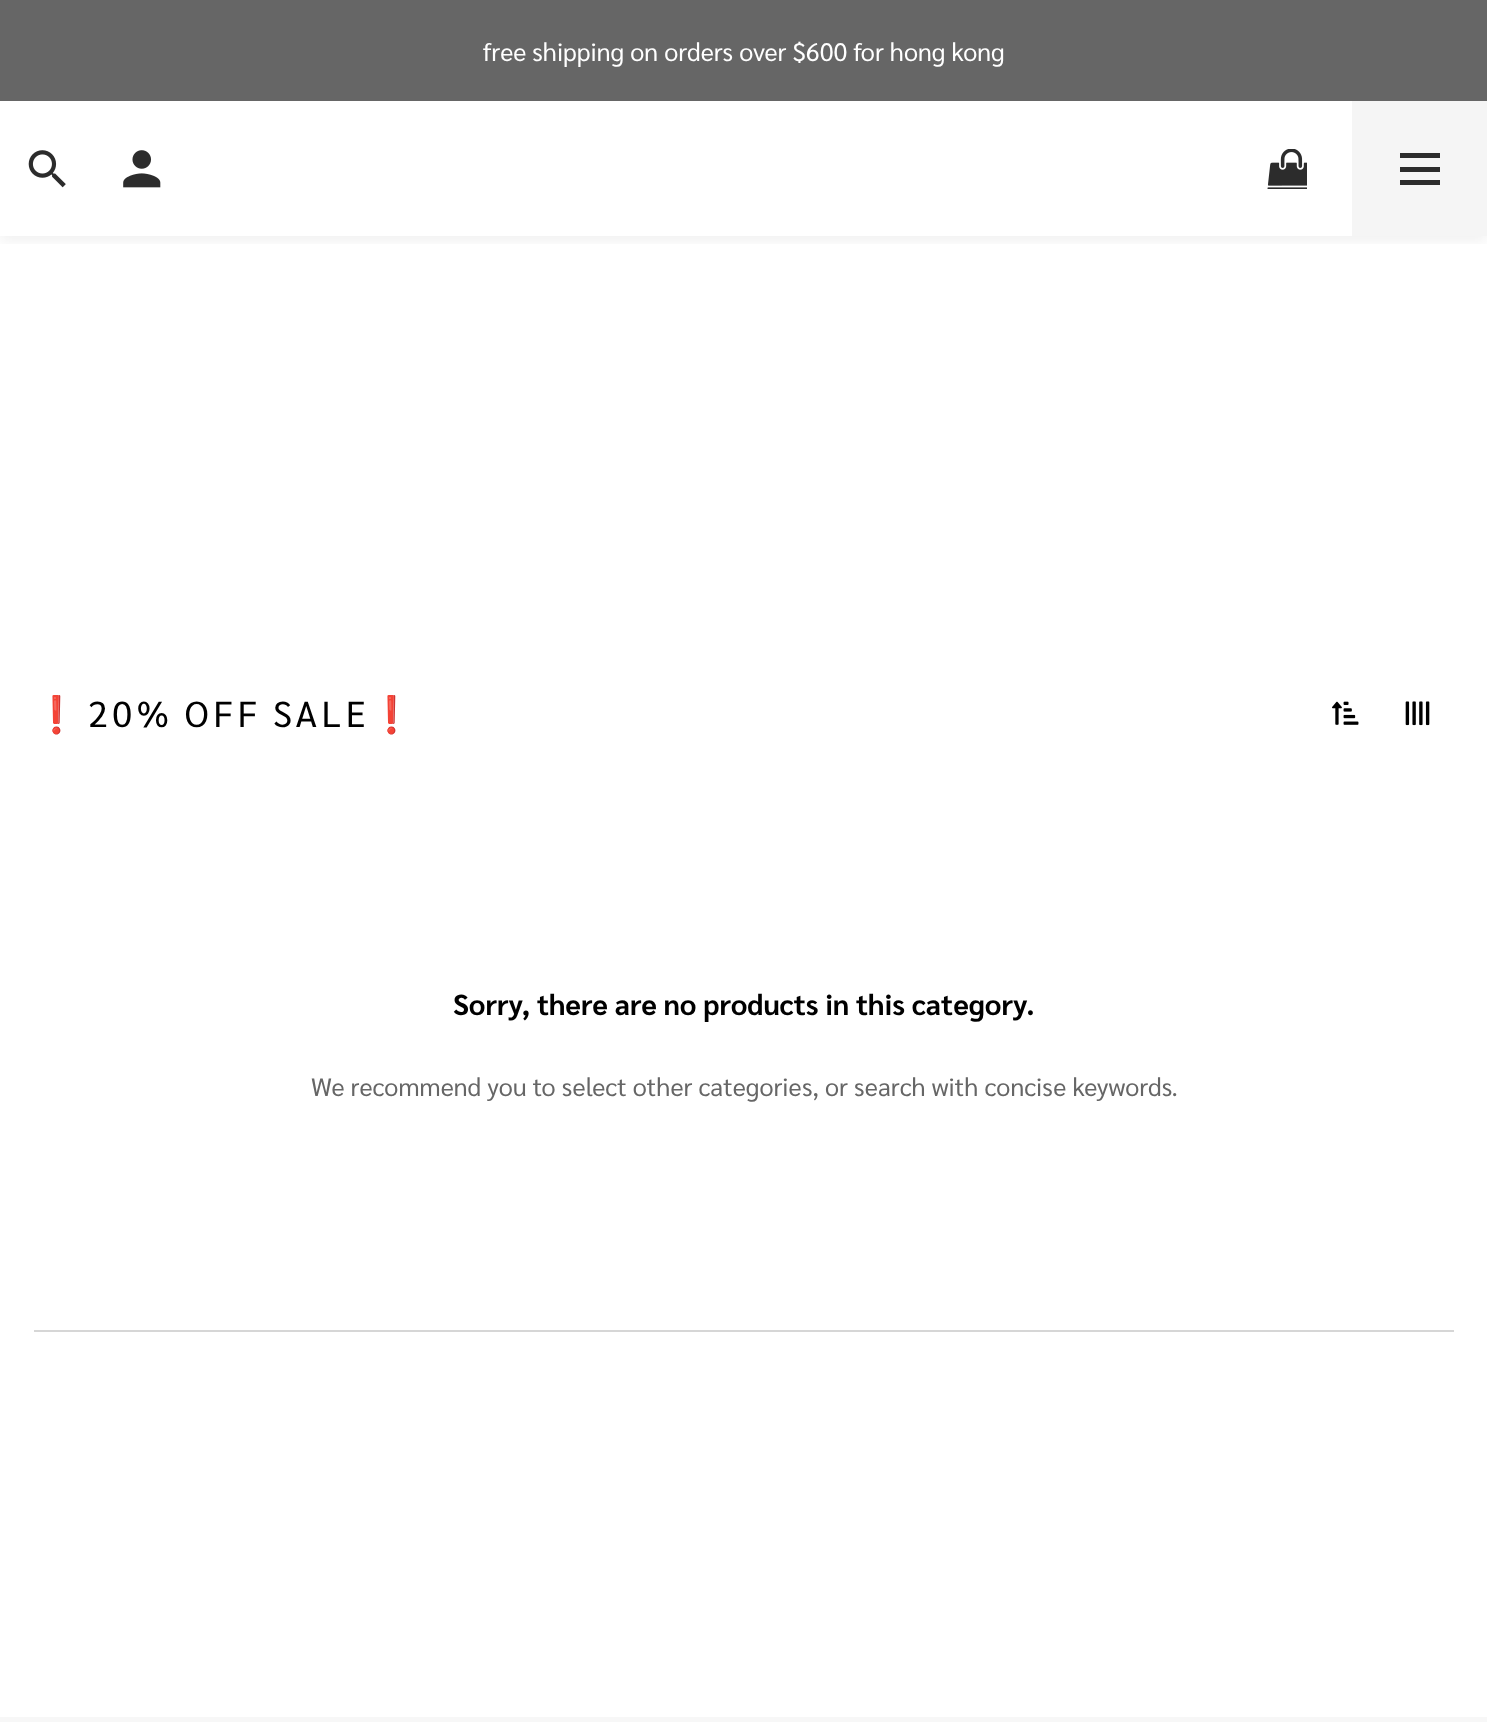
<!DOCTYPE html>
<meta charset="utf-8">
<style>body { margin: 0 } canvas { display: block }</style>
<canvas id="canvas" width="1487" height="1722"></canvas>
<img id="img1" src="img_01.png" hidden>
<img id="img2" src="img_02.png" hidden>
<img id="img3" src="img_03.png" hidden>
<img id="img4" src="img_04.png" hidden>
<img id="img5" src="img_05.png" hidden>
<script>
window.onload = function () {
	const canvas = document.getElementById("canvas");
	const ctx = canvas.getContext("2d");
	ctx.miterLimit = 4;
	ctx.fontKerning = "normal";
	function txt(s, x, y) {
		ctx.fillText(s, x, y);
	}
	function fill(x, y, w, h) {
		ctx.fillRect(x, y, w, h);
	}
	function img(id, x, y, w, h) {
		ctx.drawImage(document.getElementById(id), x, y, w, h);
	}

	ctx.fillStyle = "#FFFFFF";
	fill(0, 0, 1487, 1722);
	ctx.fillStyle = "#666666";
	fill(0, 0, 1487, 101);
	ctx.save();
	ctx.beginPath();
	ctx.rect(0, 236, 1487, 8);
	ctx.clip();
	ctx.fillStyle = "rgba(0, 0, 0, 0.06)";
	ctx.filter = "blur(7px)";
	ctx.beginPath();
	ctx.rect(0, 106, 1487, 135);
	ctx.fill();
	ctx.filter = "none";
	ctx.restore();
	img("img1", 28, 150, 38, 38);
	img("img2", 123, 150, 38, 38);
	img("img3", 1267, 149, 40, 40);
	ctx.fillStyle = "#F5F5F5";
	fill(1352, 101, 135, 135);
	ctx.fillStyle = "#2C2C2C";
	fill(1400, 167, 40, 5);
	fill(1400, 153, 40, 5);
	fill(1400, 180, 40, 5);
	img("img4", 1332, 701, 27, 24);
	img("img5", 1405, 701, 25, 25);
	ctx.fillStyle = "#D6D6D6";
	fill(34, 1330, 1420, 2);
	ctx.fillStyle = "#F7F7F7";
	fill(0, 1717, 1487, 5);
	ctx.font = "25.2px Sarabun";
	ctx.fillStyle = "#FFFFFF";
	txt("free shipping on orders over $600 for hong kong", 483, 61);
	ctx.letterSpacing = "4.5px";
	ctx.font = "36px Noto Color Emoji";
	ctx.fillStyle = "#000000";
	txt("❗️", 34, 727);
	ctx.wordSpacing = "-2px";
	ctx.font = "36px Sarabun";
	txt("20% OFF SALE", 88, 727);
	ctx.wordSpacing = "0px";
	ctx.font = "36px Noto Color Emoji";
	txt("❗️", 369, 727);
	ctx.letterSpacing = "0px";
	ctx.font = "bold 28.8px Sarabun";
	txt("Sorry, there are no products in this category.", 453, 1015);
	ctx.font = "25.2px Sarabun";
	ctx.fillStyle = "#666666";
	txt("We recommend you to select other categories, or search with concise keywords.", 311, 1096);
};
</script>
